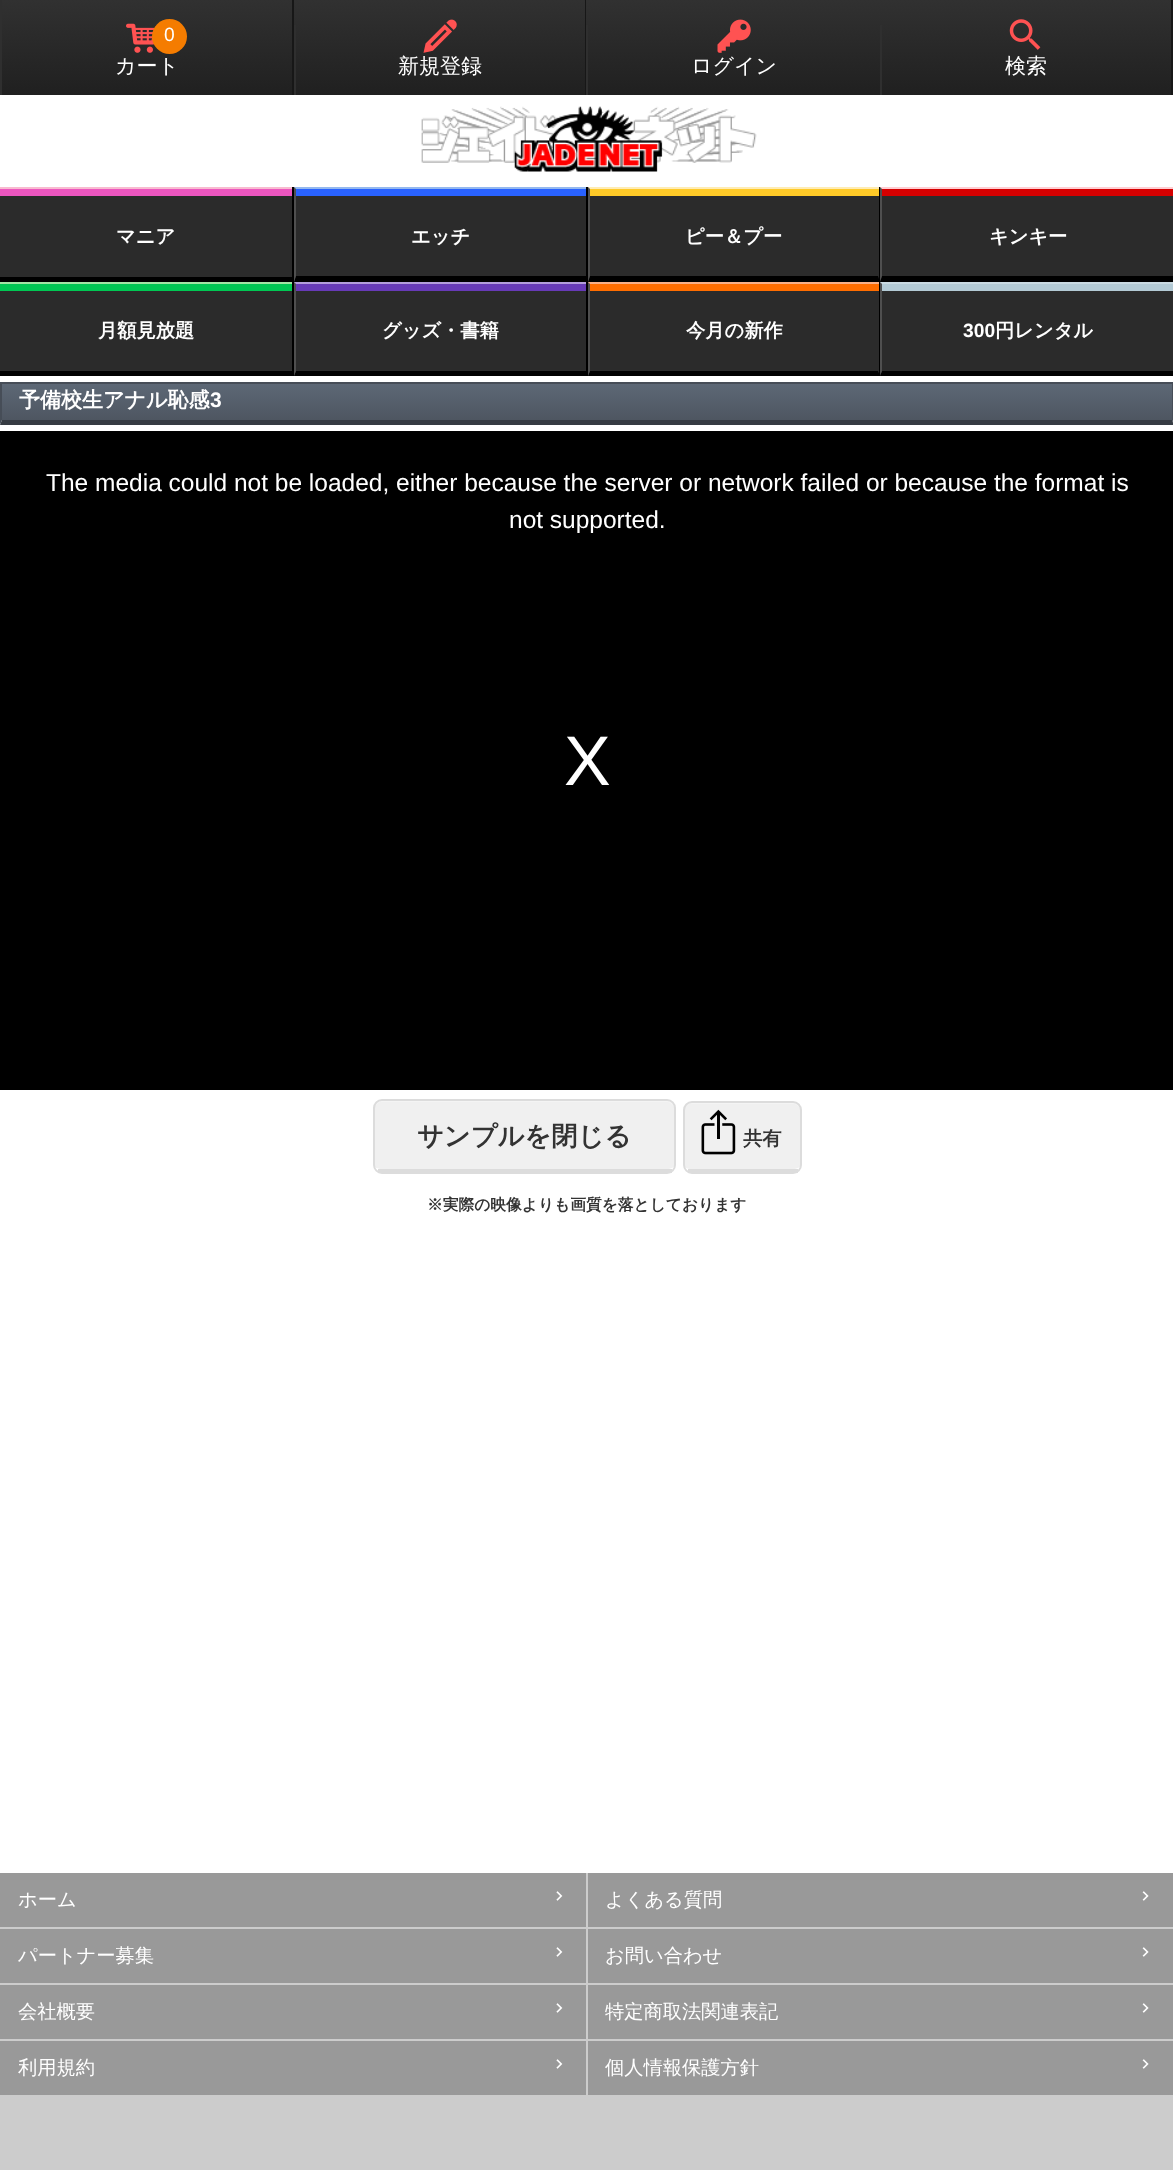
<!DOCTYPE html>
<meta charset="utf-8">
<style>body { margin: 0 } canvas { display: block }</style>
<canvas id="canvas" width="1173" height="2170"></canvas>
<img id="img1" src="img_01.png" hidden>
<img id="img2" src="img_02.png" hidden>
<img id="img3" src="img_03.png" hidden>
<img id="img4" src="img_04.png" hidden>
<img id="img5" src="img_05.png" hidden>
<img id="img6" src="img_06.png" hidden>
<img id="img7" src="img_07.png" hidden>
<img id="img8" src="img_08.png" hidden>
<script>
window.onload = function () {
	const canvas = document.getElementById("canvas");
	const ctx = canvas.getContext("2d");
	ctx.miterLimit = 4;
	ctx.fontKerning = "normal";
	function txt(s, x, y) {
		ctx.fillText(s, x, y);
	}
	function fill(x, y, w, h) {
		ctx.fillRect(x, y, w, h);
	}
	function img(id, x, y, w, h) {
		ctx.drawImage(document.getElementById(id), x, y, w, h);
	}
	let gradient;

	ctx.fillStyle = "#FFFFFF";
	fill(0, 0, 1173, 2170);
	gradient = ctx.createLinearGradient(587, 0, 587, 95);
	gradient.addColorStop(0, "#313131");
	gradient.addColorStop(1, "#202020");
	ctx.fillStyle = gradient;
	fill(2, 0, 1169, 95);
	ctx.fillStyle = "#171717";
	fill(292, 0, 2, 95);
	ctx.fillStyle = "#2F2F2F";
	fill(0, 0, 2, 95);
	img("img1", 126, 23, 31, 30);
	ctx.fillStyle = "#F57C00";
	ctx.beginPath();
	ctx.arc(169.5, 36.5, 17.5, 0, Math.PI * 2);
	ctx.fill();
	ctx.fillStyle = "#171717";
	fill(585, 0, 1, 95);
	ctx.fillStyle = "#2F2F2F";
	fill(294, 25, 2, 70);
	img("img2", 423, 19, 34, 34);
	fill(586, 25, 2, 70);
	img("img3", 717, 19, 34, 34);
	ctx.fillStyle = "#171717";
	fill(1171, 0, 2, 95);
	ctx.fillStyle = "#2F2F2F";
	fill(880, 25, 2, 70);
	img("img4", 1009, 19, 32, 31);
	img("img5", 421, 106, 336, 66);
	ctx.fillStyle = "#2B2B2B";
	fill(0, 196, 1173, 180);
	ctx.fillStyle = "#EC56BF";
	fill(0, 189, 292, 7);
	ctx.fillStyle = "#F8BBD0";
	fill(0, 187, 294, 2);
	ctx.fillStyle = "#000000";
	fill(292, 187, 2, 95);
	fill(0, 277, 294, 5);
	ctx.fillStyle = "#2962FF";
	fill(296, 189, 290, 7);
	ctx.fillStyle = "#94B8EF";
	fill(294, 187, 294, 2);
	ctx.fillStyle = "#000000";
	fill(586, 187, 2, 95);
	ctx.beginPath();
	ctx.moveTo(588, 282);
	ctx.lineTo(294, 282);
	ctx.lineTo(296, 276);
	ctx.lineTo(586, 276);
	ctx.closePath();
	ctx.fill();
	ctx.fillStyle = "#4F4F4F";
	ctx.beginPath();
	ctx.moveTo(294, 282);
	ctx.lineTo(294, 187);
	ctx.lineTo(296, 189);
	ctx.lineTo(296, 276);
	ctx.closePath();
	ctx.fill();
	ctx.fillStyle = "#FFCA28";
	fill(590, 189, 289, 7);
	ctx.fillStyle = "#FFECB3";
	fill(588, 187, 292, 2);
	ctx.fillStyle = "#000000";
	fill(879, 187, 2, 95);
	ctx.beginPath();
	ctx.moveTo(880, 282);
	ctx.lineTo(588, 282);
	ctx.lineTo(590, 276);
	ctx.lineTo(878, 276);
	ctx.closePath();
	ctx.fill();
	ctx.fillStyle = "#4F4F4F";
	ctx.beginPath();
	ctx.moveTo(588, 282);
	ctx.lineTo(588, 187);
	ctx.lineTo(590, 189);
	ctx.lineTo(590, 276);
	ctx.closePath();
	ctx.fill();
	ctx.fillStyle = "#D50000";
	fill(882, 189, 291, 7);
	ctx.fillStyle = "#FFCDD2";
	fill(880, 187, 293, 2);
	ctx.fillStyle = "#000000";
	ctx.beginPath();
	ctx.moveTo(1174, 282);
	ctx.lineTo(880, 282);
	ctx.lineTo(882, 276);
	ctx.lineTo(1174, 276);
	ctx.closePath();
	ctx.fill();
	ctx.fillStyle = "#4F4F4F";
	ctx.beginPath();
	ctx.moveTo(880, 282);
	ctx.lineTo(880, 187);
	ctx.lineTo(882, 189);
	ctx.lineTo(882, 276);
	ctx.closePath();
	ctx.fill();
	ctx.fillStyle = "#00C853";
	fill(0, 284, 292, 7);
	ctx.fillStyle = "#A3E5A5";
	fill(0, 282, 294, 2);
	ctx.fillStyle = "#000000";
	fill(292, 282, 2, 94);
	fill(0, 371, 294, 5);
	ctx.fillStyle = "#673AB7";
	fill(296, 284, 290, 7);
	ctx.fillStyle = "#B39DDB";
	fill(294, 282, 294, 2);
	ctx.fillStyle = "#000000";
	fill(586, 282, 2, 94);
	ctx.beginPath();
	ctx.moveTo(588, 376);
	ctx.lineTo(294, 376);
	ctx.lineTo(296, 371);
	ctx.lineTo(586, 371);
	ctx.closePath();
	ctx.fill();
	ctx.fillStyle = "#4F4F4F";
	ctx.beginPath();
	ctx.moveTo(294, 376);
	ctx.lineTo(294, 282);
	ctx.lineTo(296, 284);
	ctx.lineTo(296, 371);
	ctx.closePath();
	ctx.fill();
	ctx.fillStyle = "#FF6D00";
	fill(590, 284, 289, 7);
	ctx.fillStyle = "#F7AF88";
	fill(588, 282, 292, 2);
	ctx.fillStyle = "#000000";
	fill(879, 282, 2, 94);
	ctx.beginPath();
	ctx.moveTo(880, 376);
	ctx.lineTo(588, 376);
	ctx.lineTo(590, 371);
	ctx.lineTo(878, 371);
	ctx.closePath();
	ctx.fill();
	ctx.fillStyle = "#4F4F4F";
	ctx.beginPath();
	ctx.moveTo(588, 376);
	ctx.lineTo(588, 282);
	ctx.lineTo(590, 284);
	ctx.lineTo(590, 371);
	ctx.closePath();
	ctx.fill();
	ctx.fillStyle = "#B3CAD5";
	fill(882, 284, 291, 7);
	ctx.fillStyle = "#CADAE2";
	fill(880, 282, 293, 2);
	ctx.fillStyle = "#000000";
	ctx.beginPath();
	ctx.moveTo(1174, 376);
	ctx.lineTo(880, 376);
	ctx.lineTo(882, 371);
	ctx.lineTo(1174, 371);
	ctx.closePath();
	ctx.fill();
	ctx.fillStyle = "#4F4F4F";
	ctx.beginPath();
	ctx.moveTo(880, 376);
	ctx.lineTo(880, 282);
	ctx.lineTo(882, 284);
	ctx.lineTo(882, 371);
	ctx.closePath();
	ctx.fill();
	gradient = ctx.createLinearGradient(587, 383, 587, 420);
	gradient.addColorStop(0, "#5D6876");
	gradient.addColorStop(1, "#4E5661");
	ctx.fillStyle = gradient;
	fill(2, 384, 1170, 36);
	ctx.fillStyle = "#464D57";
	fill(0, 382, 1173, 2);
	ctx.beginPath();
	ctx.moveTo(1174, 382);
	ctx.lineTo(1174, 425);
	ctx.lineTo(1172, 420);
	ctx.lineTo(1172, 383);
	ctx.closePath();
	ctx.fill();
	ctx.fillStyle = "#363B43";
	ctx.beginPath();
	ctx.moveTo(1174, 425);
	ctx.lineTo(0, 425);
	ctx.lineTo(2, 420);
	ctx.lineTo(1172, 420);
	ctx.closePath();
	ctx.fill();
	ctx.fillStyle = "#464D57";
	ctx.beginPath();
	ctx.moveTo(0, 425);
	ctx.lineTo(0, 382);
	ctx.lineTo(2, 383);
	ctx.lineTo(2, 420);
	ctx.closePath();
	ctx.fill();
	ctx.fillStyle = "#000000";
	fill(0, 431, 1173, 659);
	ctx.fillStyle = "#F0F0F0";
	ctx.beginPath();
	ctx.moveTo(382, 1101);
	ctx.lineTo(667, 1101);
	ctx.bezierCurveTo(671, 1101, 674, 1104, 674, 1108);
	ctx.lineTo(674, 1166);
	ctx.bezierCurveTo(674, 1167, 671, 1169, 667, 1169);
	ctx.lineTo(382, 1169);
	ctx.bezierCurveTo(378, 1169, 374, 1167, 374, 1166);
	ctx.lineTo(374, 1108);
	ctx.bezierCurveTo(374, 1104, 378, 1101, 382, 1101);
	ctx.closePath();
	ctx.fill();
	ctx.fillStyle = "rgba(255, 255, 255, 0.3)";
	ctx.beginPath();
	ctx.moveTo(382, 1102);
	ctx.lineTo(667, 1102);
	ctx.bezierCurveTo(670, 1102, 673, 1105, 674, 1108);
	ctx.bezierCurveTo(674, 1104, 671, 1101, 667, 1101);
	ctx.lineTo(382, 1101);
	ctx.bezierCurveTo(378, 1101, 375, 1104, 375, 1107);
	ctx.bezierCurveTo(376, 1104, 379, 1102, 382, 1102);
	ctx.closePath();
	ctx.fill();
	ctx.beginPath();
	ctx.roundRect(374, 1100, 301, 73, 8);
	ctx.strokeStyle = "#DCDCDC";
	ctx.lineWidth = 2;
	ctx.stroke();
	ctx.fillStyle = "#DCDCDC";
	fill(378, 1169, 294, 4);
	ctx.fillStyle = "#F0F0F0";
	ctx.beginPath();
	ctx.moveTo(691, 1102);
	ctx.lineTo(793, 1102);
	ctx.bezierCurveTo(797, 1102, 800, 1106, 800, 1110);
	ctx.lineTo(800, 1166);
	ctx.bezierCurveTo(800, 1167, 797, 1169, 793, 1169);
	ctx.lineTo(691, 1169);
	ctx.bezierCurveTo(687, 1169, 684, 1167, 684, 1166);
	ctx.lineTo(684, 1110);
	ctx.bezierCurveTo(684, 1106, 687, 1102, 691, 1102);
	ctx.closePath();
	ctx.fill();
	ctx.fillStyle = "rgba(255, 255, 255, 0.3)";
	ctx.beginPath();
	ctx.moveTo(691, 1104);
	ctx.lineTo(793, 1104);
	ctx.bezierCurveTo(796, 1104, 799, 1106, 800, 1109);
	ctx.bezierCurveTo(799, 1105, 796, 1102, 793, 1102);
	ctx.lineTo(691, 1102);
	ctx.bezierCurveTo(688, 1102, 685, 1105, 684, 1109);
	ctx.bezierCurveTo(685, 1106, 688, 1104, 691, 1104);
	ctx.closePath();
	ctx.fill();
	ctx.beginPath();
	ctx.roundRect(684, 1102, 117, 71, 8);
	ctx.stroke();
	ctx.fillStyle = "#DCDCDC";
	fill(688, 1169, 110, 4);
	img("img6", 701, 1109, 35, 46);
	ctx.fillStyle = "#CCCCCC";
	fill(0, 1873, 1173, 297);
	ctx.fillStyle = "#999999";
	fill(0, 1873, 586, 54);
	img("img7", 556, 1891, 7, 10);
	fill(588, 1873, 585, 54);
	img("img8", 1142, 1891, 7, 10);
	fill(0, 1929, 586, 54);
	img("img7", 556, 1947, 7, 10);
	fill(588, 1929, 585, 54);
	img("img8", 1142, 1947, 7, 10);
	fill(0, 1985, 586, 54);
	img("img7", 556, 2003, 7, 10);
	fill(588, 1985, 585, 54);
	img("img8", 1142, 2003, 7, 10);
	fill(0, 2041, 586, 54);
	img("img7", 556, 2059, 7, 10);
	fill(588, 2041, 585, 54);
	img("img8", 1142, 2059, 7, 10);
	ctx.font = "19.25px Liberation Sans";
	ctx.fillStyle = "#FFFFFF";
	txt("0", 164, 41);
	ctx.font = "500 21px WenQuanYi Zen Hei";
	txt("カート", 115, 73);
	txt("新規登録", 398, 73);
	txt("ログイン", 691, 73);
	txt("検索", 1005, 73);
	ctx.font = "bold 19.25px WenQuanYi Zen Hei";
	txt("マニア", 116, 243);
	txt("エッチ", 411, 243);
	txt("ピー＆プー", 685, 243);
	txt("キンキー", 989, 243);
	txt("月額見放題", 98, 337);
	txt("グッズ・書籍", 382, 337);
	txt("今月の新作", 686, 337);
	ctx.font = "bold 19.25px Liberation Sans";
	txt("300", 963, 337);
	ctx.font = "bold 19.25px WenQuanYi Zen Hei";
	txt("円レンタル", 995, 337);
	ctx.font = "bold 21px WenQuanYi Zen Hei";
	txt("予備校生アナル恥感", 19, 407);
	ctx.font = "bold 21px Liberation Sans";
	txt("3", 210, 407);
	ctx.font = "24.5px Liberation Sans";
	txt("The media could not be loaded, either because the server or network failed or because the format is", 46, 491);
	txt("not supported.", 509, 528);
	ctx.font = "70px Liberation Sans";
	txt("X", 564, 785);
	ctx.font = "bold 26.25px WenQuanYi Zen Hei";
	ctx.fillStyle = "#333333";
	txt("サンプルを閉じる", 417, 1145);
	ctx.font = "bold 19.25px WenQuanYi Zen Hei";
	txt("共有", 743, 1145);
	ctx.font = "bold 15.75px WenQuanYi Zen Hei";
	txt("※実際の映像よりも画質を落としております", 427, 1210);
	ctx.font = "500 19.25px WenQuanYi Zen Hei";
	ctx.fillStyle = "#FFFFFF";
	txt("ホーム", 18, 1906);
	txt("よくある質問", 605, 1906);
	txt("パートナー募集", 18, 1962);
	txt("お問い合わせ", 605, 1962);
	txt("会社概要", 18, 2018);
	txt("特定商取法関連表記", 605, 2018);
	txt("利用規約", 18, 2074);
	txt("個人情報保護方針", 605, 2074);
};
</script>
